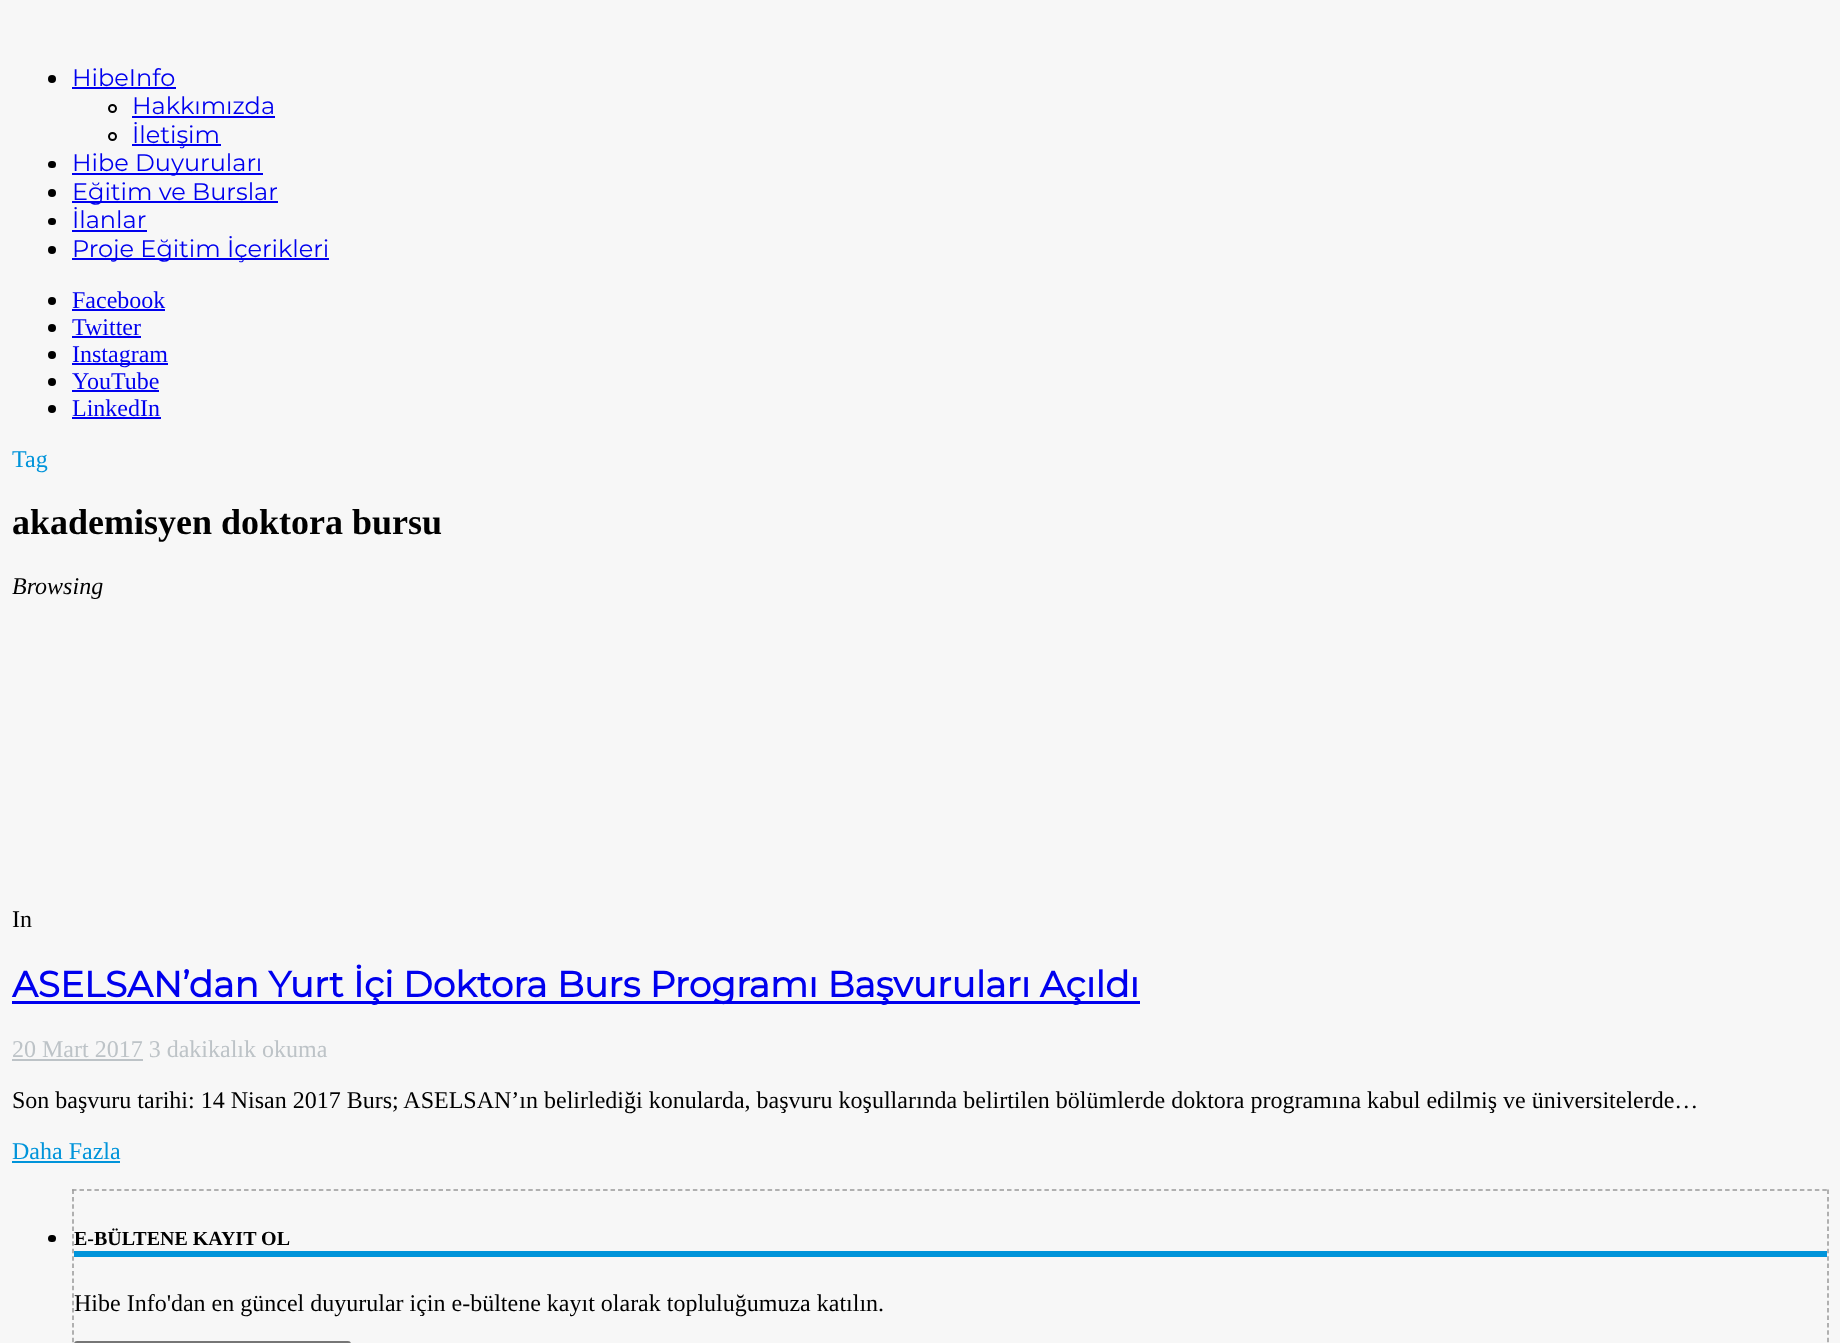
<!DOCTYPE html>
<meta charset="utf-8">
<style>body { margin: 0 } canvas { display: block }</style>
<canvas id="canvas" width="1840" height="1343"></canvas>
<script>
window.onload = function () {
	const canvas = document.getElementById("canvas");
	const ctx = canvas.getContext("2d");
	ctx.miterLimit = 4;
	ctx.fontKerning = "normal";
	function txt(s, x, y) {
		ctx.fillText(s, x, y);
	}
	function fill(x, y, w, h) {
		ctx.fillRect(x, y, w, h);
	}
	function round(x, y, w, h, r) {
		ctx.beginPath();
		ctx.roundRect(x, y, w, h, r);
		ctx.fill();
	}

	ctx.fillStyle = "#F7F7F7";
	fill(0, 0, 1840, 1343);
	ctx.fillStyle = "#000000";
	ctx.beginPath();
	ctx.arc(52, 79, 4, 0, Math.PI * 2);
	ctx.fill();
	ctx.fillStyle = "#0000EE";
	fill(72, 87, 104, 2);
	ctx.beginPath();
	ctx.arc(112.5, 108.5, 3.5, 0, Math.PI * 2);
	ctx.strokeStyle = "#000000";
	ctx.lineWidth = 2;
	ctx.stroke();
	fill(132, 116, 143, 2);
	ctx.beginPath();
	ctx.arc(112.5, 136.5, 3.5, 0, Math.PI * 2);
	ctx.stroke();
	fill(132, 144, 89, 2);
	ctx.fillStyle = "#000000";
	round(48, 161, 8, 7, 3.5);
	ctx.fillStyle = "#0000EE";
	fill(72, 173, 191, 2);
	ctx.fillStyle = "#000000";
	ctx.beginPath();
	ctx.arc(52, 193, 4, 0, Math.PI * 2);
	ctx.fill();
	ctx.fillStyle = "#0000EE";
	fill(72, 201, 206, 2);
	ctx.fillStyle = "#000000";
	round(48, 218, 8, 7, 3.5);
	ctx.fillStyle = "#0000EE";
	fill(72, 230, 75, 2);
	ctx.fillStyle = "#000000";
	ctx.beginPath();
	ctx.arc(52, 250, 4, 0, Math.PI * 2);
	ctx.fill();
	ctx.fillStyle = "#0000EE";
	fill(72, 258, 257, 2);
	ctx.fillStyle = "#000000";
	ctx.beginPath();
	ctx.arc(52, 301, 4, 0, Math.PI * 2);
	ctx.fill();
	ctx.fillStyle = "#0000EE";
	fill(72, 309, 93, 2);
	ctx.fillStyle = "#000000";
	ctx.beginPath();
	ctx.arc(52, 328, 4, 0, Math.PI * 2);
	ctx.fill();
	ctx.fillStyle = "#0000EE";
	fill(72, 336, 69, 2);
	ctx.fillStyle = "#000000";
	ctx.beginPath();
	ctx.arc(52, 355, 4, 0, Math.PI * 2);
	ctx.fill();
	ctx.fillStyle = "#0000EE";
	fill(72, 363, 96, 2);
	ctx.fillStyle = "#000000";
	ctx.beginPath();
	ctx.arc(52, 382, 4, 0, Math.PI * 2);
	ctx.fill();
	ctx.fillStyle = "#0000EE";
	fill(72, 390, 87, 2);
	ctx.fillStyle = "#000000";
	ctx.beginPath();
	ctx.arc(52, 409, 4, 0, Math.PI * 2);
	ctx.fill();
	ctx.fillStyle = "#0000EE";
	fill(72, 417, 89, 2);
	fill(12, 1001, 1128, 3);
	ctx.fillStyle = "#BDC3C7";
	fill(12, 1059, 131, 2);
	ctx.fillStyle = "#0094DA";
	fill(12, 1161, 108, 2);
	ctx.beginPath();
	ctx.moveTo(72, 1190);
	ctx.lineTo(1828.5, 1190);
	ctx.strokeStyle = "#999999";
	ctx.lineWidth = 1.5;
	ctx.setLineDash([4.5, 2.98]);
	ctx.stroke();
	ctx.beginPath();
	ctx.moveTo(1828, 1189.5);
	ctx.lineTo(1828, 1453.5);
	ctx.setLineDash([4.5, 2.91]);
	ctx.stroke();
	ctx.beginPath();
	ctx.moveTo(73, 1189.5);
	ctx.lineTo(73, 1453.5);
	ctx.stroke();
	ctx.fillStyle = "#000000";
	round(48, 1235, 8, 7, 3.5);
	ctx.fillStyle = "#0094DA";
	fill(74, 1251, 1753, 6);
	ctx.beginPath();
	ctx.roundRect(75, 1342, 275, 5, 2);
	ctx.strokeStyle = "#767676";
	ctx.lineWidth = 2;
	ctx.setLineDash([]);
	ctx.stroke();
	ctx.font = "100 24px Montserrat";
	ctx.fillStyle = "#0000EE";
	txt("HibeInfo", 72, 86);
	txt("Hakkımızda", 132, 114);
	txt("İletişim", 132, 143);
	txt("Hibe Duyuruları", 72, 171);
	txt("Eğitim ve Burslar", 72, 200);
	txt("İlanlar", 72, 228);
	txt("Proje Eğitim İçerikleri", 72, 257);
	ctx.font = "24px Liberation Serif";
	txt("Facebook", 72, 308);
	txt("Twitter", 72, 335);
	txt("Instagram", 72, 362);
	txt("YouTube", 72, 389);
	txt("LinkedIn", 72, 416);
	ctx.fillStyle = "#0094DA";
	txt("Tag", 12, 467);
	ctx.font = "bold 36px Liberation Serif";
	ctx.fillStyle = "#000000";
	txt("akademisyen doktora bursu", 12, 534);
	ctx.font = "italic 24px Liberation Serif";
	txt("Browsing", 12, 594);
	ctx.font = "24px Liberation Serif";
	txt("In", 12, 927);
	ctx.font = "bold 36px Montserrat";
	ctx.fillStyle = "#0000EE";
	txt("ASELSAN’dan Yurt İçi Doktora Burs Programı Başvuruları Açıldı", 12, 997);
	ctx.font = "24px Liberation Serif";
	ctx.fillStyle = "#BDC3C7";
	txt("20 Mart 2017 3 dakikalık okuma", 12, 1057);
	ctx.fillStyle = "#000000";
	txt("Son başvuru tarihi: 14 Nisan 2017 Burs; ASELSAN’ın belirlediği konularda, başvuru koşullarında belirtilen bölümlerde doktora programına kabul edilmiş ve üniversitelerde…", 12, 1108);
	ctx.fillStyle = "#0094DA";
	txt("Daha Fazla", 12, 1159);
	ctx.font = "bold 20px Liberation Serif";
	ctx.fillStyle = "#000000";
	txt("E-BÜLTENE KAYIT OL", 74, 1245);
	ctx.font = "24px Liberation Serif";
	txt("Hibe Info'dan en güncel duyurular için e-bültene kayıt olarak topluluğumuza katılın.", 74, 1311);
};
</script>
